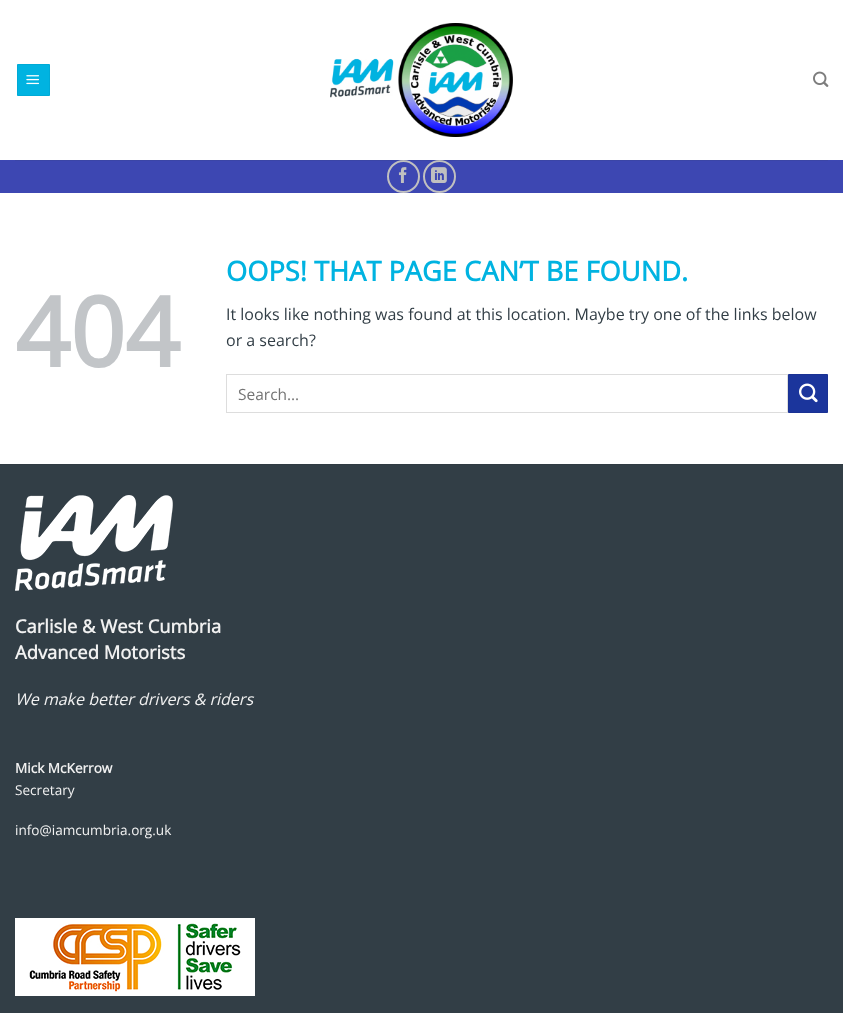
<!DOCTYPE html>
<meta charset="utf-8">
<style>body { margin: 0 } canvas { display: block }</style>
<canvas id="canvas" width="843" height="1013"></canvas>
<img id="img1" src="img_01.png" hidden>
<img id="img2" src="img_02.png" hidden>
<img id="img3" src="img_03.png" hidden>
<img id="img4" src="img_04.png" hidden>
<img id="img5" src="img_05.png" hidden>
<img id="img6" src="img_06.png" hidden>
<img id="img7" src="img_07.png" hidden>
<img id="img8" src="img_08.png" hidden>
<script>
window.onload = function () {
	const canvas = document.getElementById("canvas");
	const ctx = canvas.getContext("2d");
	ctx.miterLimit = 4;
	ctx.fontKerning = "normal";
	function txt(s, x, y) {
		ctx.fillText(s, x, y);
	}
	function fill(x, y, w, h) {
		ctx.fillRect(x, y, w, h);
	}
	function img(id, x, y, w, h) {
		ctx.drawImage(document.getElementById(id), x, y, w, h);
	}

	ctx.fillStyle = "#FFFFFF";
	fill(0, 0, 843, 1013);
	ctx.fillStyle = "#00B3E1";
	ctx.beginPath();
	ctx.rect(17.5, 64.5, 32, 31);
	ctx.fill();
	ctx.strokeStyle = "#00AAD6";
	ctx.stroke();
	img("img1", 26, 75, 13, 10);
	img("img2", 330, 23, 183, 114);
	img("img3", 813, 71, 16, 16);
	ctx.fillStyle = "#3D47B2";
	fill(0, 160, 843, 33);
	ctx.beginPath();
	ctx.arc(403.5, 176.5, 15.5, 0, Math.PI * 2);
	ctx.strokeStyle = "#C0C0C0";
	ctx.lineWidth = 2;
	ctx.stroke();
	ctx.beginPath();
	ctx.arc(439.5, 176.5, 15.5, 0, Math.PI * 2);
	ctx.stroke();
	ctx.fillStyle = "rgba(50, 62, 70, 0.1)";
	fill(15, 160, 813, 1);
	img("img4", 398, 167, 9, 16);
	img("img5", 431, 167, 16, 16);
	ctx.strokeStyle = "#DDDDDD";
	ctx.lineWidth = 1;
	ctx.strokeRect(226.5, 374.5, 561, 38);
	ctx.fillStyle = "#1B359C";
	ctx.beginPath();
	ctx.rect(788.5, 374.5, 39, 38);
	ctx.fill();
	ctx.strokeStyle = "#1A3294";
	ctx.stroke();
	img("img6", 799, 383, 19, 20);
	ctx.fillStyle = "#323E46";
	fill(0, 465, 843, 548);
	ctx.fillStyle = "#303B43";
	fill(0, 464, 843, 1);
	img("img7", 15, 495, 158, 96);
	img("img8", 15, 918, 240, 78);
	ctx.font = "bold 96px Open Sans";
	ctx.fillStyle = "#C2C5C8";
	txt("404", 15, 367);
	ctx.font = "bold 27.25px Open Sans";
	ctx.fillStyle = "#00B3E1";
	txt("OOPS! THAT PAGE CAN’T BE FOUND.", 226, 281);
	ctx.font = "16px Open Sans";
	ctx.fillStyle = "#323E46";
	txt("It looks like nothing was found at this location. Maybe try one of the links below", 226, 320);
	txt("or a search?", 226, 346);
	ctx.font = "15.5px Open Sans";
	ctx.fillStyle = "#757575";
	txt("Search…", 238, 400);
	ctx.font = "bold 18.4px Open Sans";
	ctx.fillStyle = "#F1F1F1";
	txt("Carlisle & West Cumbria", 15, 633);
	txt("Advanced Motorists", 15, 659);
	ctx.font = "italic 16px Open Sans";
	txt("We make better drivers & riders", 15, 705);
	ctx.font = "bold 13.6px Open Sans";
	txt("Mick McKerrow", 15, 773);
	ctx.font = "13.6px Open Sans";
	txt("Secretary", 15, 795);
	txt("info@iamcumbria.org.uk", 15, 835);
};
</script>
